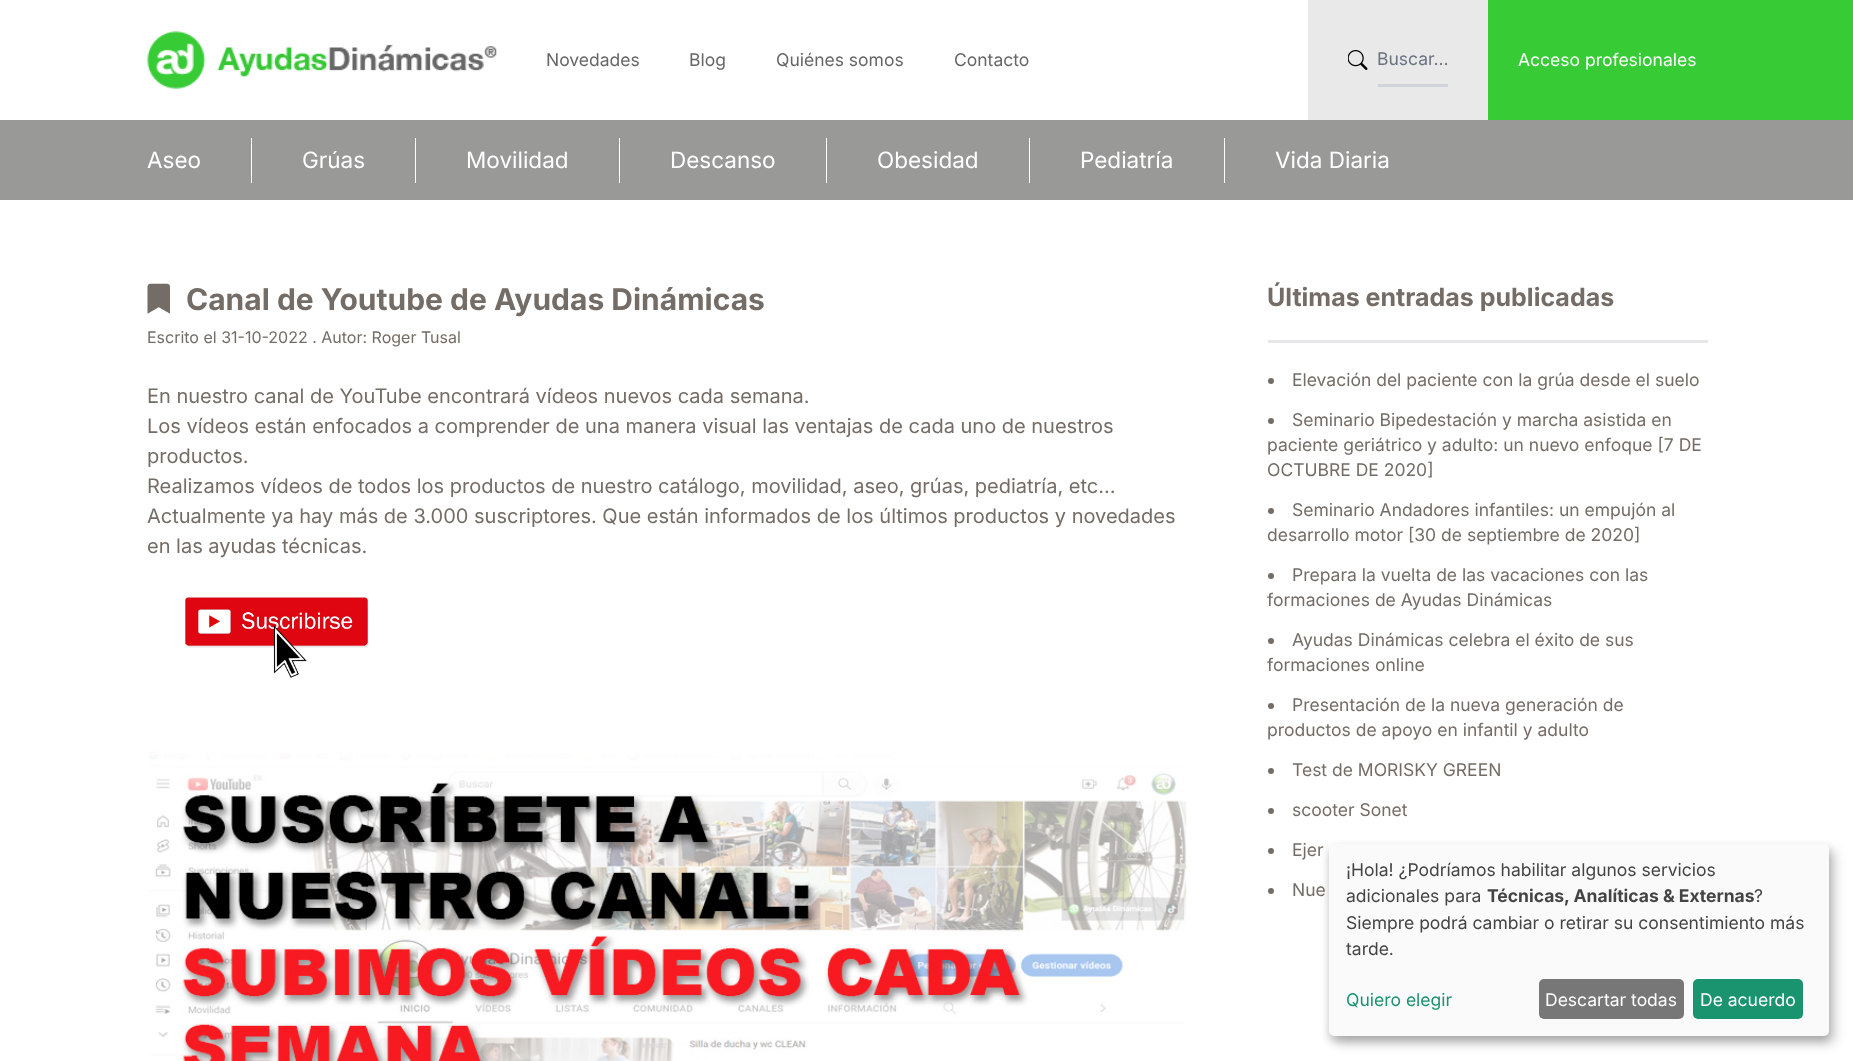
<!DOCTYPE html>
<meta charset="utf-8">
<style>body { margin: 0 } canvas { display: block }</style>
<canvas id="canvas" width="1853" height="1061"></canvas>
<img id="img1" src="img_01.png" hidden>
<img id="img2" src="img_02.png" hidden>
<img id="img3" src="img_03.png" hidden>
<img id="img4" src="img_04.png" hidden>
<img id="img5" src="img_05.png" hidden>
<script>
window.onload = function () {
	const canvas = document.getElementById("canvas");
	const ctx = canvas.getContext("2d");
	ctx.miterLimit = 4;
	ctx.fontKerning = "normal";
	function txt(s, x, y) {
		ctx.fillText(s, x, y);
	}
	function fill(x, y, w, h) {
		ctx.fillRect(x, y, w, h);
	}
	function round(x, y, w, h, r) {
		ctx.beginPath();
		ctx.roundRect(x, y, w, h, r);
		ctx.fill();
	}
	function img(id, x, y, w, h) {
		ctx.drawImage(document.getElementById(id), x, y, w, h);
	}
	let gradient;

	ctx.fillStyle = "#FFFFFF";
	fill(0, 0, 1853, 1061);
	gradient = ctx.createLinearGradient(0, 60, 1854, 60);
	gradient.addColorStop(0, "#FFFFFF");
	gradient.addColorStop(0.5, "#FFFFFF");
	gradient.addColorStop(0.51, "#37CB36");
	gradient.addColorStop(1, "#37CB36");
	ctx.fillStyle = gradient;
	fill(927, 0, 926, 120);
	ctx.fillStyle = "#FFFFFF";
	fill(927, 0, 381, 120);
	img("img1", 147, 31, 350, 58);
	ctx.fillStyle = "#E9E9E9";
	fill(1308, 0, 180, 120);
	img("img2", 1348, 50, 20, 20);
	ctx.fillStyle = "#D1D5DB";
	fill(1378, 84, 70, 3);
	ctx.fillStyle = "#999998";
	fill(0, 120, 1853, 80);
	ctx.fillStyle = "#FFFFFF";
	fill(251, 138, 1, 45);
	fill(415, 138, 1, 45);
	fill(619, 138, 1, 45);
	fill(826, 138, 1, 45);
	fill(1029, 138, 1, 45);
	fill(1224, 138, 1, 45);
	img("img3", 147, 283, 23, 31);
	img("img4", 185, 597, 184, 81);
	img("img5", 149, 751, 1038, 310);
	ctx.fillStyle = "#E5E7EB";
	fill(1268, 340, 440, 3);
	ctx.fillStyle = "#746C66";
	ctx.beginPath();
	ctx.arc(1271, 381, 3, 0, Math.PI * 2);
	ctx.fill();
	ctx.beginPath();
	ctx.arc(1271, 421, 3, 0, Math.PI * 2);
	ctx.fill();
	ctx.beginPath();
	ctx.arc(1271, 511, 3, 0, Math.PI * 2);
	ctx.fill();
	ctx.beginPath();
	ctx.arc(1271, 576, 3, 0, Math.PI * 2);
	ctx.fill();
	ctx.beginPath();
	ctx.arc(1271, 641, 3, 0, Math.PI * 2);
	ctx.fill();
	ctx.beginPath();
	ctx.arc(1271, 706, 3, 0, Math.PI * 2);
	ctx.fill();
	ctx.beginPath();
	ctx.arc(1271, 771, 3, 0, Math.PI * 2);
	ctx.fill();
	ctx.beginPath();
	ctx.arc(1271, 811, 3, 0, Math.PI * 2);
	ctx.fill();
	ctx.beginPath();
	ctx.arc(1271, 851, 3, 0, Math.PI * 2);
	ctx.fill();
	ctx.beginPath();
	ctx.arc(1271, 891, 3, 0, Math.PI * 2);
	ctx.fill();
	ctx.fillStyle = "rgba(0, 0, 0, 0.19)";
	ctx.filter = "blur(6px)";
	ctx.beginPath();
	ctx.roundRect(1335, 850, 500, 193, 5);
	ctx.fill();
	ctx.filter = "none";
	ctx.fillStyle = "rgba(0, 0, 0, 0.2)";
	ctx.filter = "blur(4px)";
	ctx.beginPath();
	ctx.roundRect(1329, 849, 500, 192, 5);
	ctx.fill();
	ctx.filter = "none";
	ctx.fillStyle = "#FAFAFA";
	round(1329, 844, 500, 192, 5);
	ctx.fillStyle = "#777777";
	round(1539, 979, 145, 40, 5);
	ctx.fillStyle = "#1A936F";
	round(1693, 979, 110, 40, 5);
	ctx.font = "17.5px Inter";
	ctx.fillStyle = "#666666";
	txt("Novedades", 546, 66);
	txt("Blog", 689, 66);
	txt("Quiénes somos", 776, 66);
	txt("Contacto", 954, 66);
	ctx.fillStyle = "#6B7280";
	txt("Buscar...", 1377, 65);
	ctx.fillStyle = "#FFFFFF";
	txt("Acceso profesionales", 1518, 66);
	ctx.font = "22.5px Inter";
	txt("Aseo", 147, 168);
	txt("Grúas", 302, 168);
	txt("Movilidad", 466, 168);
	txt("Descanso", 670, 168);
	txt("Obesidad", 877, 168);
	txt("Pediatría", 1080, 168);
	txt("Vida Diaria", 1275, 168);
	ctx.font = "bold 30px Inter";
	ctx.fillStyle = "#746C66";
	txt("Canal de Youtube de Ayudas Dinámicas", 186, 310);
	ctx.font = "16px Inter";
	txt("Escrito el 31-10-2022 . Autor: Roger Tusal", 147, 343);
	ctx.font = "20px Inter";
	txt("En nuestro canal de YouTube encontrará vídeos nuevos cada semana.", 147, 403);
	txt("Los vídeos están enfocados a comprender de una manera visual las ventajas de cada uno de nuestros", 147, 433);
	txt("productos.", 147, 463);
	txt("Realizamos vídeos de todos los productos de nuestro catálogo, movilidad, aseo, grúas, pediatría, etc…", 147, 493);
	txt("Actualmente ya hay más de 3.000 suscriptores. Que están informados de los últimos productos y novedades", 147, 523);
	txt("en las ayudas técnicas.", 147, 553);
	ctx.font = "bold 25px Inter";
	txt("Últimas entradas publicadas", 1267, 306);
	ctx.font = "17.5px Inter";
	txt("Elevación del paciente con la grúa desde el suelo", 1292, 386);
	txt("Seminario Bipedestación y marcha asistida en", 1292, 426);
	txt("paciente geriátrico y adulto: un nuevo enfoque [7 DE", 1267, 451);
	txt("OCTUBRE DE 2020]", 1267, 476);
	txt("Seminario Andadores infantiles: un empujón al", 1292, 516);
	txt("desarrollo motor [30 de septiembre de 2020]", 1267, 541);
	txt("Prepara la vuelta de las vacaciones con las", 1292, 581);
	txt("formaciones de Ayudas Dinámicas", 1267, 606);
	txt("Ayudas Dinámicas celebra el éxito de sus", 1292, 646);
	txt("formaciones online", 1267, 671);
	txt("Presentación de la nueva generación de", 1292, 711);
	txt("productos de apoyo en infantil y adulto", 1267, 736);
	txt("Test de MORISKY GREEN", 1292, 776);
	txt("scooter Sonet", 1292, 816);
	txt("Ejer", 1292, 856);
	txt("Nue", 1292, 896);
	ctx.fillStyle = "#444444";
	txt("¡Hola! ¿Podríamos habilitar algunos servicios", 1346, 876);
	txt("adicionales para", 1346, 902);
	ctx.font = "bold 17.5px Inter";
	txt("Técnicas, Analíticas & Externas", 1487, 902);
	ctx.font = "17.5px Inter";
	txt("?", 1754, 902);
	txt("Siempre podrá cambiar o retirar su consentimiento más", 1346, 929);
	txt("tarde.", 1346, 955);
	ctx.fillStyle = "#1A936F";
	txt("Quiero elegir", 1346, 1006);
	ctx.fillStyle = "#FFFFFF";
	txt("Descartar todas", 1545, 1006);
	txt("De acuerdo", 1700, 1006);
};
</script>
